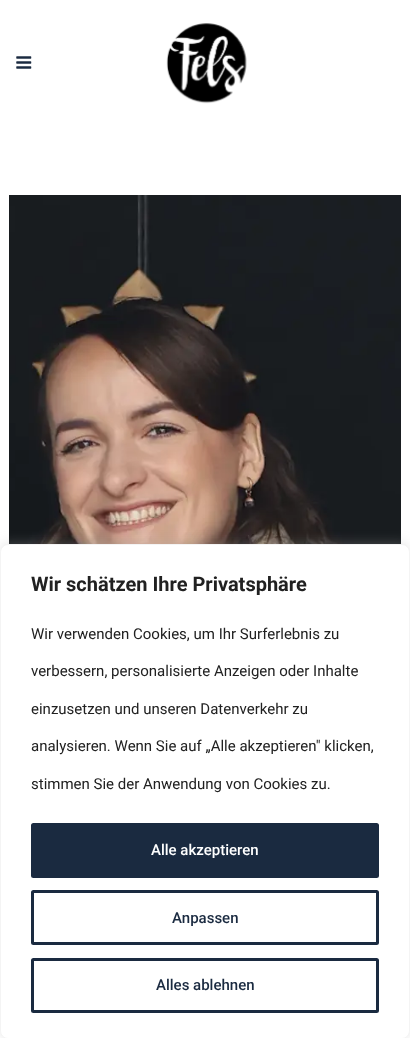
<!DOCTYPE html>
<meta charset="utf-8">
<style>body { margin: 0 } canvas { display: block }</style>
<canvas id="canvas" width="410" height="1038"></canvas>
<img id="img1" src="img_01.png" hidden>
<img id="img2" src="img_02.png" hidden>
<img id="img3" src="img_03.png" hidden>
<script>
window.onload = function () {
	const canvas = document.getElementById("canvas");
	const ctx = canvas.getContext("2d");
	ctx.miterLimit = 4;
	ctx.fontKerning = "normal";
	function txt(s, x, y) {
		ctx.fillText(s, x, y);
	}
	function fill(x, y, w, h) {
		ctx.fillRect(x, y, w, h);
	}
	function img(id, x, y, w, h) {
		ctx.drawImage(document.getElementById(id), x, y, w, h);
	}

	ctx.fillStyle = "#FFFFFF";
	fill(0, 0, 410, 1038);
	img("img1", 16, 56, 16, 13);
	img("img2", 166, 23, 81, 81);
	img("img3", 9, 195, 392, 349);
	ctx.fillStyle = "rgba(172, 171, 171, 0.3)";
	ctx.filter = "blur(6px)";
	ctx.beginPath();
	ctx.roundRect(0, 543, 410, 495, 8);
	ctx.fill();
	ctx.filter = "none";
	ctx.fillStyle = "#FFFFFF";
	ctx.beginPath();
	ctx.roundRect(0.5, 544.5, 409, 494, 7.5);
	ctx.fill();
	ctx.strokeStyle = "#F4F4F4";
	ctx.stroke();
	ctx.fillStyle = "#1A2A40";
	ctx.beginPath();
	ctx.roundRect(32.5, 824.5, 345, 52, 1);
	ctx.fill();
	ctx.strokeStyle = "#1A2A40";
	ctx.lineWidth = 3;
	ctx.stroke();
	ctx.beginPath();
	ctx.roundRect(32.5, 891.5, 345, 52, 1);
	ctx.stroke();
	ctx.beginPath();
	ctx.roundRect(32.5, 959.5, 345, 52, 1);
	ctx.stroke();
	ctx.font = "bold 20px Roboto";
	ctx.fillStyle = "#212121";
	txt("Wir schätzen Ihre Privatsphäre", 31, 591);
	ctx.font = "15px Roboto";
	txt("Wir verwenden Cookies, um Ihr Surferlebnis zu", 31, 639);
	txt("verbessern, personalisierte Anzeigen oder Inhalte", 31, 676);
	txt("einzusetzen und unseren Datenverkehr zu", 31, 714);
	txt("analysieren. Wenn Sie auf „Alle akzeptieren\" klicken,", 31, 751);
	txt("stimmen Sie der Anwendung von Cookies zu.", 31, 789);
	ctx.font = "500 15px Roboto";
	ctx.fillStyle = "#FFFFFF";
	txt("Alle akzeptieren", 151, 855);
	ctx.fillStyle = "#1A2A40";
	txt("Anpassen", 172, 923);
	txt("Alles ablehnen", 156, 990);
};
</script>
